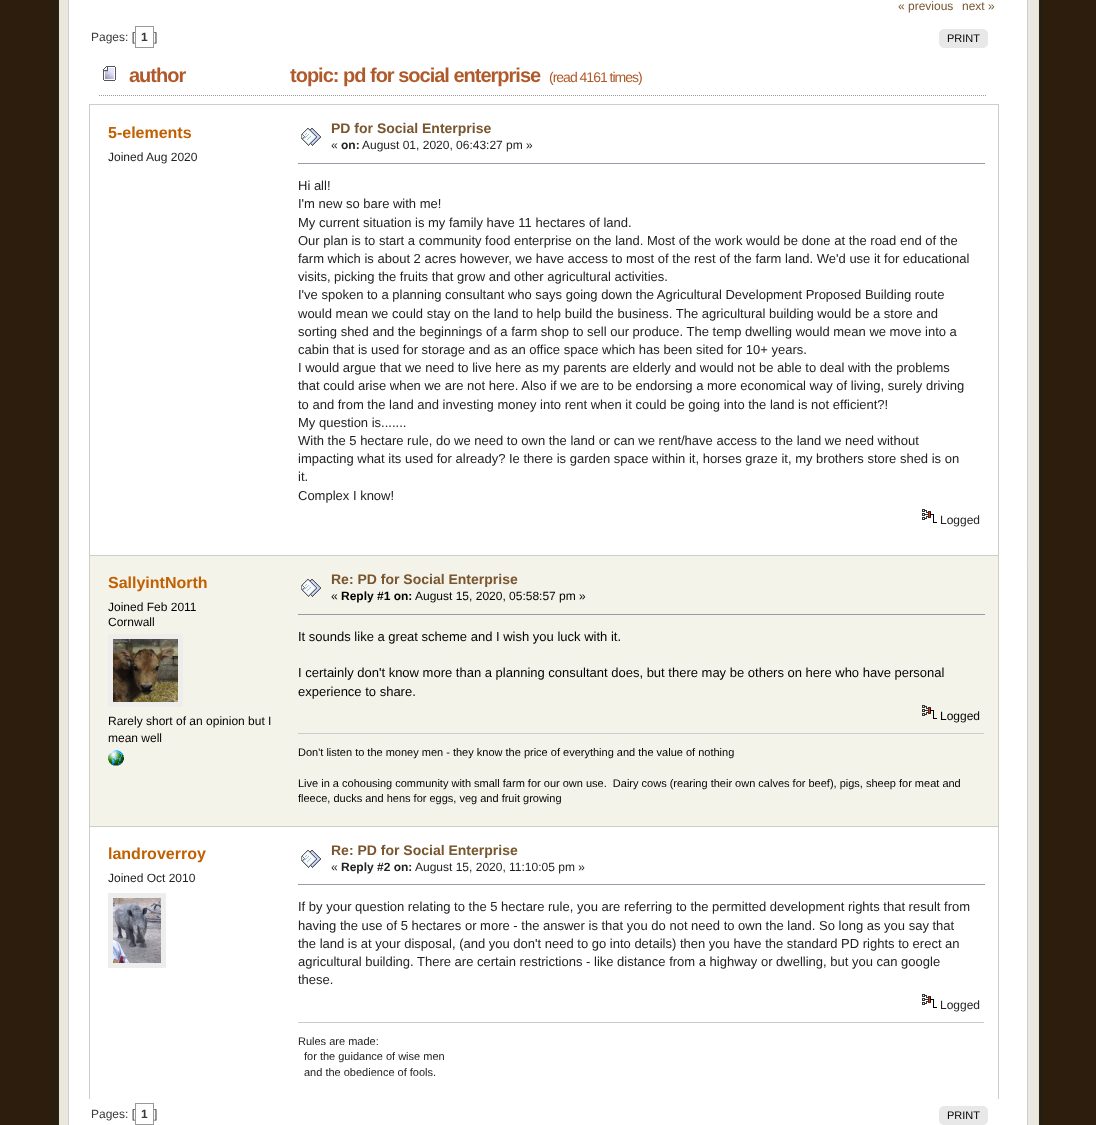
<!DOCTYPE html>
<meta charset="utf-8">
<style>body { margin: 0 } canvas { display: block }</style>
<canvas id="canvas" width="1096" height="1125"></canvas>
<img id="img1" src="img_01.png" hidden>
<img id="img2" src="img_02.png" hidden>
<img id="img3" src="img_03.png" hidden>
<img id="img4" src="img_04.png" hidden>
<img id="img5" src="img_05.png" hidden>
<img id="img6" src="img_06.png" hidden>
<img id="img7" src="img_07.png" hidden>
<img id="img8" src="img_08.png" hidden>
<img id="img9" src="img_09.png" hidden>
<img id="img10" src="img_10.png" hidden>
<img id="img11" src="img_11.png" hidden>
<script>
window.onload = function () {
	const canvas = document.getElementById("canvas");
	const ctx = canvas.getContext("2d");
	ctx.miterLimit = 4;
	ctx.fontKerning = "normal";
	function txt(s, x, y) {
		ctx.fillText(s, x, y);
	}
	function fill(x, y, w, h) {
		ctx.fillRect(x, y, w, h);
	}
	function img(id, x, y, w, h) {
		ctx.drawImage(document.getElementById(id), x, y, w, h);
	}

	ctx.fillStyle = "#FFFFFF";
	fill(0, 0, 1096, 1125);
	img("img1", 0, 0, 1096, 1125);
	ctx.beginPath();
	ctx.rect(68.5, -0.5, 959, 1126);
	ctx.fill();
	ctx.strokeStyle = "#CDCEC6";
	ctx.stroke();
	ctx.fillStyle = "#E8E8E8";
	fill(943, 29, 41, 19);
	img("img2", 939, 29, 4, 19);
	img("img3", 984, 29, 4, 19);
	ctx.beginPath();
	ctx.moveTo(99, 95.5);
	ctx.lineTo(987, 95.5);
	ctx.strokeStyle = "#999999";
	ctx.setLineDash([1, 1]);
	ctx.stroke();
	img("img4", 103, 66, 13, 15);
	ctx.fillStyle = "#CDCEC6";
	fill(89, 104, 910, 1);
	fill(998, 104, 1, 451);
	fill(89, 104, 1, 451);
	img("img5", 301, 128, 20, 18);
	ctx.fillStyle = "#9999AA";
	fill(298, 163, 687, 1);
	img("img6", 922, 509, 15, 14);
	ctx.fillStyle = "#F4F3EA";
	fill(90, 556, 908, 270);
	ctx.fillStyle = "#CDCEC6";
	fill(89, 555, 910, 1);
	fill(998, 555, 1, 271);
	fill(89, 555, 1, 271);
	ctx.strokeStyle = "#EDEDEC";
	ctx.lineWidth = 5;
	ctx.setLineDash([]);
	ctx.strokeRect(110.5, 636.5, 70, 68);
	img("img7", 113, 639, 65, 63);
	img("img8", 108, 750, 16, 16);
	img("img9", 301, 579, 20, 18);
	ctx.fillStyle = "#9999AA";
	fill(298, 614, 687, 1);
	img("img10", 922, 705, 15, 14);
	ctx.fillStyle = "#CCCCCC";
	fill(298, 733, 686, 1);
	ctx.fillStyle = "#CDCEC6";
	fill(89, 826, 910, 1);
	fill(998, 826, 1, 273);
	fill(89, 826, 1, 273);
	ctx.strokeRect(110.5, 895.5, 53, 70);
	img("img11", 113, 898, 48, 65);
	img("img5", 301, 850, 20, 18);
	ctx.fillStyle = "#9999AA";
	fill(298, 884, 687, 1);
	img("img6", 922, 994, 15, 14);
	ctx.fillStyle = "#CCCCCC";
	fill(298, 1022, 686, 1);
	ctx.fillStyle = "#E8E8E8";
	fill(943, 1106, 41, 19);
	img("img2", 939, 1106, 4, 19);
	img("img3", 984, 1106, 4, 19);
	ctx.font = "12px Liberation Sans";
	ctx.fillStyle = "#78562F";
	txt("« previous", 898, 10);
	txt("next »", 962, 10);
	ctx.fillStyle = "#393939";
	txt("Pages: [", 91, 41);
	ctx.strokeStyle = "#999999";
	ctx.lineWidth = 1;
	ctx.strokeRect(135.5, 26.5, 18, 21);
	ctx.font = "bold 12px Liberation Sans";
	txt("1", 141, 41);
	ctx.font = "12px Liberation Sans";
	txt("]", 154, 41);
	ctx.font = "11px Liberation Sans";
	ctx.fillStyle = "#000000";
	txt("PRINT", 947, 42);
	ctx.letterSpacing = "-1px";
	ctx.font = "bold 20px Liberation Sans";
	ctx.fillStyle = "#B05A2B";
	txt("author", 129, 82);
	txt("topic: pd for social enterprise", 290, 82);
	ctx.font = "14px Liberation Sans";
	txt("(read 4161 times)", 549, 82);
	ctx.letterSpacing = "0px";
	ctx.font = "bold 16px Liberation Sans";
	ctx.fillStyle = "#C06002";
	txt("5-elements", 108, 138);
	ctx.font = "12px Liberation Sans";
	ctx.fillStyle = "#222222";
	txt("Joined Aug 2020", 108, 161);
	ctx.font = "bold 14px Liberation Sans";
	ctx.fillStyle = "#78562F";
	txt("PD for Social Enterprise", 331, 133);
	ctx.font = "12px Liberation Sans";
	ctx.fillStyle = "#222222";
	txt("«", 331, 149);
	ctx.font = "bold 12px Liberation Sans";
	txt("on:", 341, 149);
	ctx.font = "12px Liberation Sans";
	txt("August 01, 2020, 06:43:27 pm »", 362, 149);
	ctx.font = "13px Liberation Sans";
	txt("Hi all!", 298, 190);
	txt("I'm new so bare with me!", 298, 208);
	txt("My current situation is my family have 11 hectares of land.", 298, 227);
	txt("Our plan is to start a community food enterprise on the land. Most of the work would be done at the road end of the", 298, 245);
	txt("farm which is about 2 acres however, we have access to most of the rest of the farm land. We'd use it for educational", 298, 263);
	txt("visits, picking the fruits that grow and other agricultural activities.", 298, 281);
	txt("I've spoken to a planning consultant who says going down the Agricultural Development Proposed Building route", 298, 299);
	txt("would mean we could stay on the land to help build the business. The agricultural building would be a store and", 298, 318);
	txt("sorting shed and the beginnings of a farm shop to sell our produce. The temp dwelling would mean we move into a", 298, 336);
	txt("cabin that is used for storage and as an office space which has been sited for 10+ years.", 298, 354);
	txt("I would argue that we need to live here as my parents are elderly and would not be able to deal with the problems", 298, 372);
	txt("that could arise when we are not here. Also if we are to be endorsing a more economical way of living, surely driving", 298, 390);
	txt("to and from the land and investing money into rent when it could be going into the land is not efficient?!", 298, 409);
	txt("My question is.......", 298, 427);
	txt("With the 5 hectare rule, do we need to own the land or can we rent/have access to the land we need without", 298, 445);
	txt("impacting what its used for already? Ie there is garden space within it, horses graze it, my brothers store shed is on", 298, 463);
	txt("it.", 298, 481);
	txt("Complex I know!", 298, 500);
	ctx.font = "12px Liberation Sans";
	txt("Logged", 940, 524);
	ctx.font = "bold 16px Liberation Sans";
	ctx.fillStyle = "#C06002";
	txt("SallyintNorth", 108, 588);
	ctx.font = "12px Liberation Sans";
	ctx.fillStyle = "#000000";
	txt("Joined Feb 2011", 108, 611);
	txt("Cornwall", 108, 626);
	txt("Rarely short of an opinion but I", 108, 725);
	txt("mean well", 108, 742);
	ctx.font = "bold 14px Liberation Sans";
	ctx.fillStyle = "#78562F";
	txt("Re: PD for Social Enterprise", 331, 584);
	ctx.font = "12px Liberation Sans";
	ctx.fillStyle = "#000000";
	txt("«", 331, 600);
	ctx.font = "bold 12px Liberation Sans";
	txt("Reply #1 on:", 341, 600);
	ctx.font = "12px Liberation Sans";
	txt("August 15, 2020, 05:58:57 pm »", 415, 600);
	ctx.font = "13px Liberation Sans";
	txt("It sounds like a great scheme and I wish you luck with it.", 298, 641);
	txt("I certainly don't know more than a planning consultant does, but there may be others on here who have personal", 298, 677);
	txt("experience to share.", 298, 696);
	ctx.font = "12px Liberation Sans";
	txt("Logged", 940, 720);
	ctx.font = "11px Liberation Sans";
	txt("Don't listen to the money men - they know the price of everything and the value of nothing", 298, 756);
	txt("Live in a cohousing community with small farm for our own use.  Dairy cows (rearing their own calves for beef), pigs, sheep for meat and", 298, 787);
	txt("fleece, ducks and hens for eggs, veg and fruit growing", 298, 802);
	ctx.font = "bold 16px Liberation Sans";
	ctx.fillStyle = "#C06002";
	txt("landroverroy", 108, 859);
	ctx.font = "12px Liberation Sans";
	ctx.fillStyle = "#222222";
	txt("Joined Oct 2010", 108, 882);
	ctx.font = "bold 14px Liberation Sans";
	ctx.fillStyle = "#78562F";
	txt("Re: PD for Social Enterprise", 331, 855);
	ctx.font = "12px Liberation Sans";
	ctx.fillStyle = "#222222";
	txt("«", 331, 871);
	ctx.font = "bold 12px Liberation Sans";
	txt("Reply #2 on:", 341, 871);
	ctx.font = "12px Liberation Sans";
	txt("August 15, 2020, 11:10:05 pm »", 415, 871);
	ctx.font = "13px Liberation Sans";
	txt("If by your question relating to the 5 hectare rule, you are referring to the permitted development rights that result from", 298, 911);
	txt("having the use of 5 hectares or more - the answer is that you do not need to own the land. So long as you say that", 298, 930);
	txt("the land is at your disposal, (and you don't need to go into details) then you have the standard PD rights to erect an", 298, 948);
	txt("agricultural building. There are certain restrictions - like distance from a highway or dwelling, but you can google", 298, 966);
	txt("these.", 298, 984);
	ctx.font = "12px Liberation Sans";
	txt("Logged", 940, 1009);
	ctx.font = "11px Liberation Sans";
	txt("Rules are made:", 298, 1045);
	txt("for the guidance of wise men", 304, 1060);
	txt("and the obedience of fools.", 304, 1076);
	ctx.font = "12px Liberation Sans";
	ctx.fillStyle = "#393939";
	txt("Pages: [", 91, 1118);
	ctx.strokeRect(135.5, 1103.5, 18, 21);
	ctx.font = "bold 12px Liberation Sans";
	txt("1", 141, 1118);
	ctx.font = "12px Liberation Sans";
	txt("]", 154, 1118);
	ctx.font = "11px Liberation Sans";
	ctx.fillStyle = "#000000";
	txt("PRINT", 947, 1119);
};
</script>
